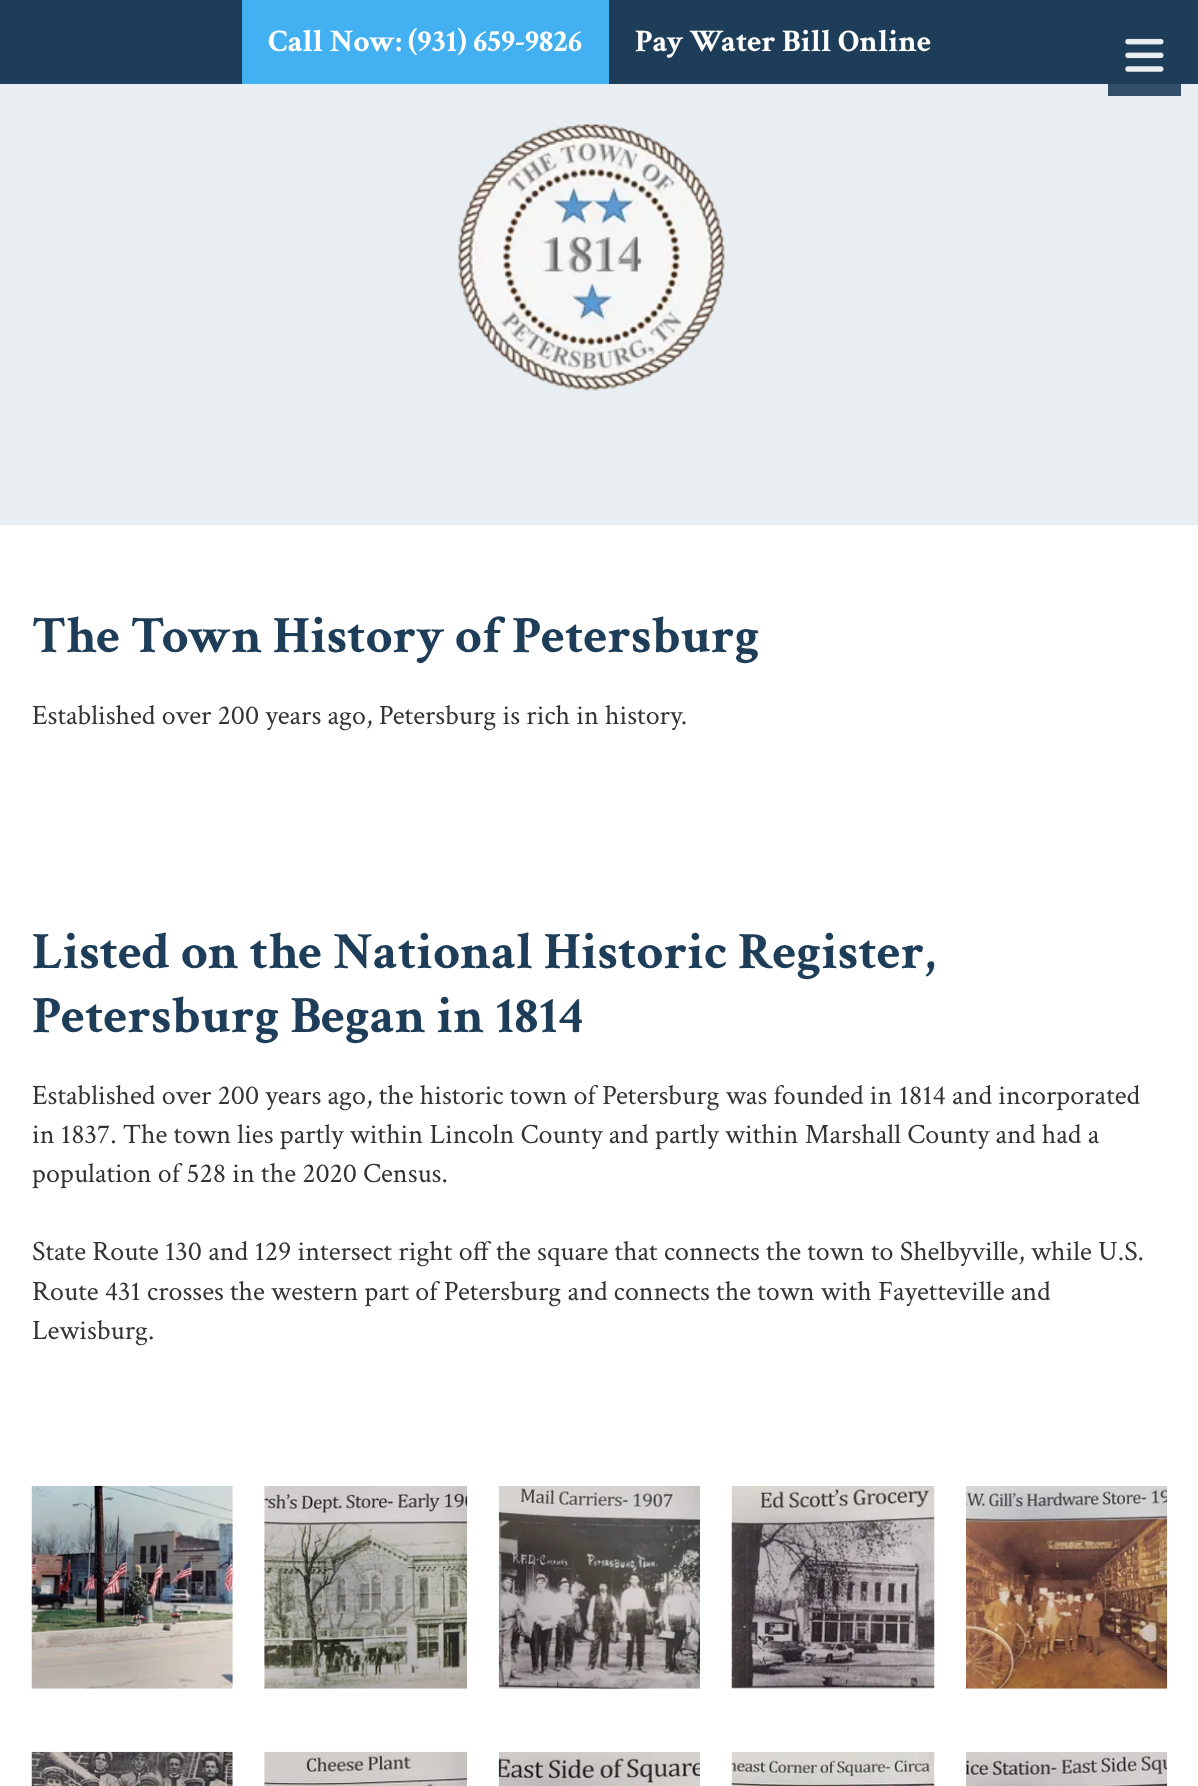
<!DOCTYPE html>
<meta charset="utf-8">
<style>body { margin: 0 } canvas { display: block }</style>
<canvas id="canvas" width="1198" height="1786"></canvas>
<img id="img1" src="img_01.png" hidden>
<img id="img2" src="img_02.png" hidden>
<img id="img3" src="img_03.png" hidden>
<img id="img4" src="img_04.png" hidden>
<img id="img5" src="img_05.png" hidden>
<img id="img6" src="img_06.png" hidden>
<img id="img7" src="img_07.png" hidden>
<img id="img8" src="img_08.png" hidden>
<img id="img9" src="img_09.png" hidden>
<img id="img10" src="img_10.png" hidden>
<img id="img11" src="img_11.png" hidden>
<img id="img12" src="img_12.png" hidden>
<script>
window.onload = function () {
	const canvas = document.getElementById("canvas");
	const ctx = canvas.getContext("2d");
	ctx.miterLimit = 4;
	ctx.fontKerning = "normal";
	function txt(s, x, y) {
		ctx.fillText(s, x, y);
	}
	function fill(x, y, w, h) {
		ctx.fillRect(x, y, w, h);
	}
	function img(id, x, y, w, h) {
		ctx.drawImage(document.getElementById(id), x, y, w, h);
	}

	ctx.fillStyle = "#E8EEF1";
	fill(0, 0, 1198, 1786);
	ctx.fillStyle = "#324F67";
	fill(1108, 84, 73, 12);
	ctx.fillStyle = "#1E3D58";
	fill(0, 0, 1198, 84);
	ctx.fillStyle = "#43B0F1";
	fill(242, 0, 367, 84);
	img("img1", 1125, 38, 39, 34);
	img("img2", 457, 124, 268, 267);
	ctx.fillStyle = "#FFFFFF";
	fill(0, 525, 1198, 1261);
	img("img3", 31, 1485, 202, 204);
	img("img4", 264, 1486, 204, 203);
	img("img5", 498, 1485, 202, 204);
	img("img6", 731, 1486, 204, 203);
	img("img7", 966, 1486, 202, 203);
	img("img8", 31, 1751, 202, 35);
	img("img9", 264, 1751, 204, 35);
	img("img10", 498, 1752, 202, 34);
	img("img11", 731, 1752, 204, 34);
	img("img12", 966, 1752, 202, 34);
	ctx.font = "bold 31.5px Crimson Text";
	txt("Call Now: (931) 659-9826", 268, 51);
	txt("Pay Water Bill Online", 635, 51);
	ctx.font = "bold 52.5px Crimson Text";
	ctx.fillStyle = "#1E3D58";
	txt("The Town History of Petersburg", 32, 652);
	ctx.font = "28px Crimson Text";
	ctx.fillStyle = "#333333";
	txt("Established over 200 years ago, Petersburg is rich in history.", 32, 724);
	ctx.font = "bold 52.5px Crimson Text";
	ctx.fillStyle = "#1E3D58";
	txt("Listed on the National Historic Register,", 32, 968);
	txt("Petersburg Began in 1814", 32, 1032);
	ctx.font = "28px Crimson Text";
	ctx.fillStyle = "#333333";
	txt("Established over 200 years ago, the historic town of Petersburg was founded in 1814 and incorporated", 32, 1104);
	txt("in 1837. The town lies partly within Lincoln County and partly within Marshall County and had a", 32, 1143);
	txt("population of 528 in the 2020 Census.", 32, 1182);
	txt("State Route 130 and 129 intersect right off the square that connects the town to Shelbyville, while U.S.", 32, 1260);
	txt("Route 431 crosses the western part of Petersburg and connects the town with Fayetteville and", 32, 1300);
	txt("Lewisburg.", 32, 1339);
};
</script>
